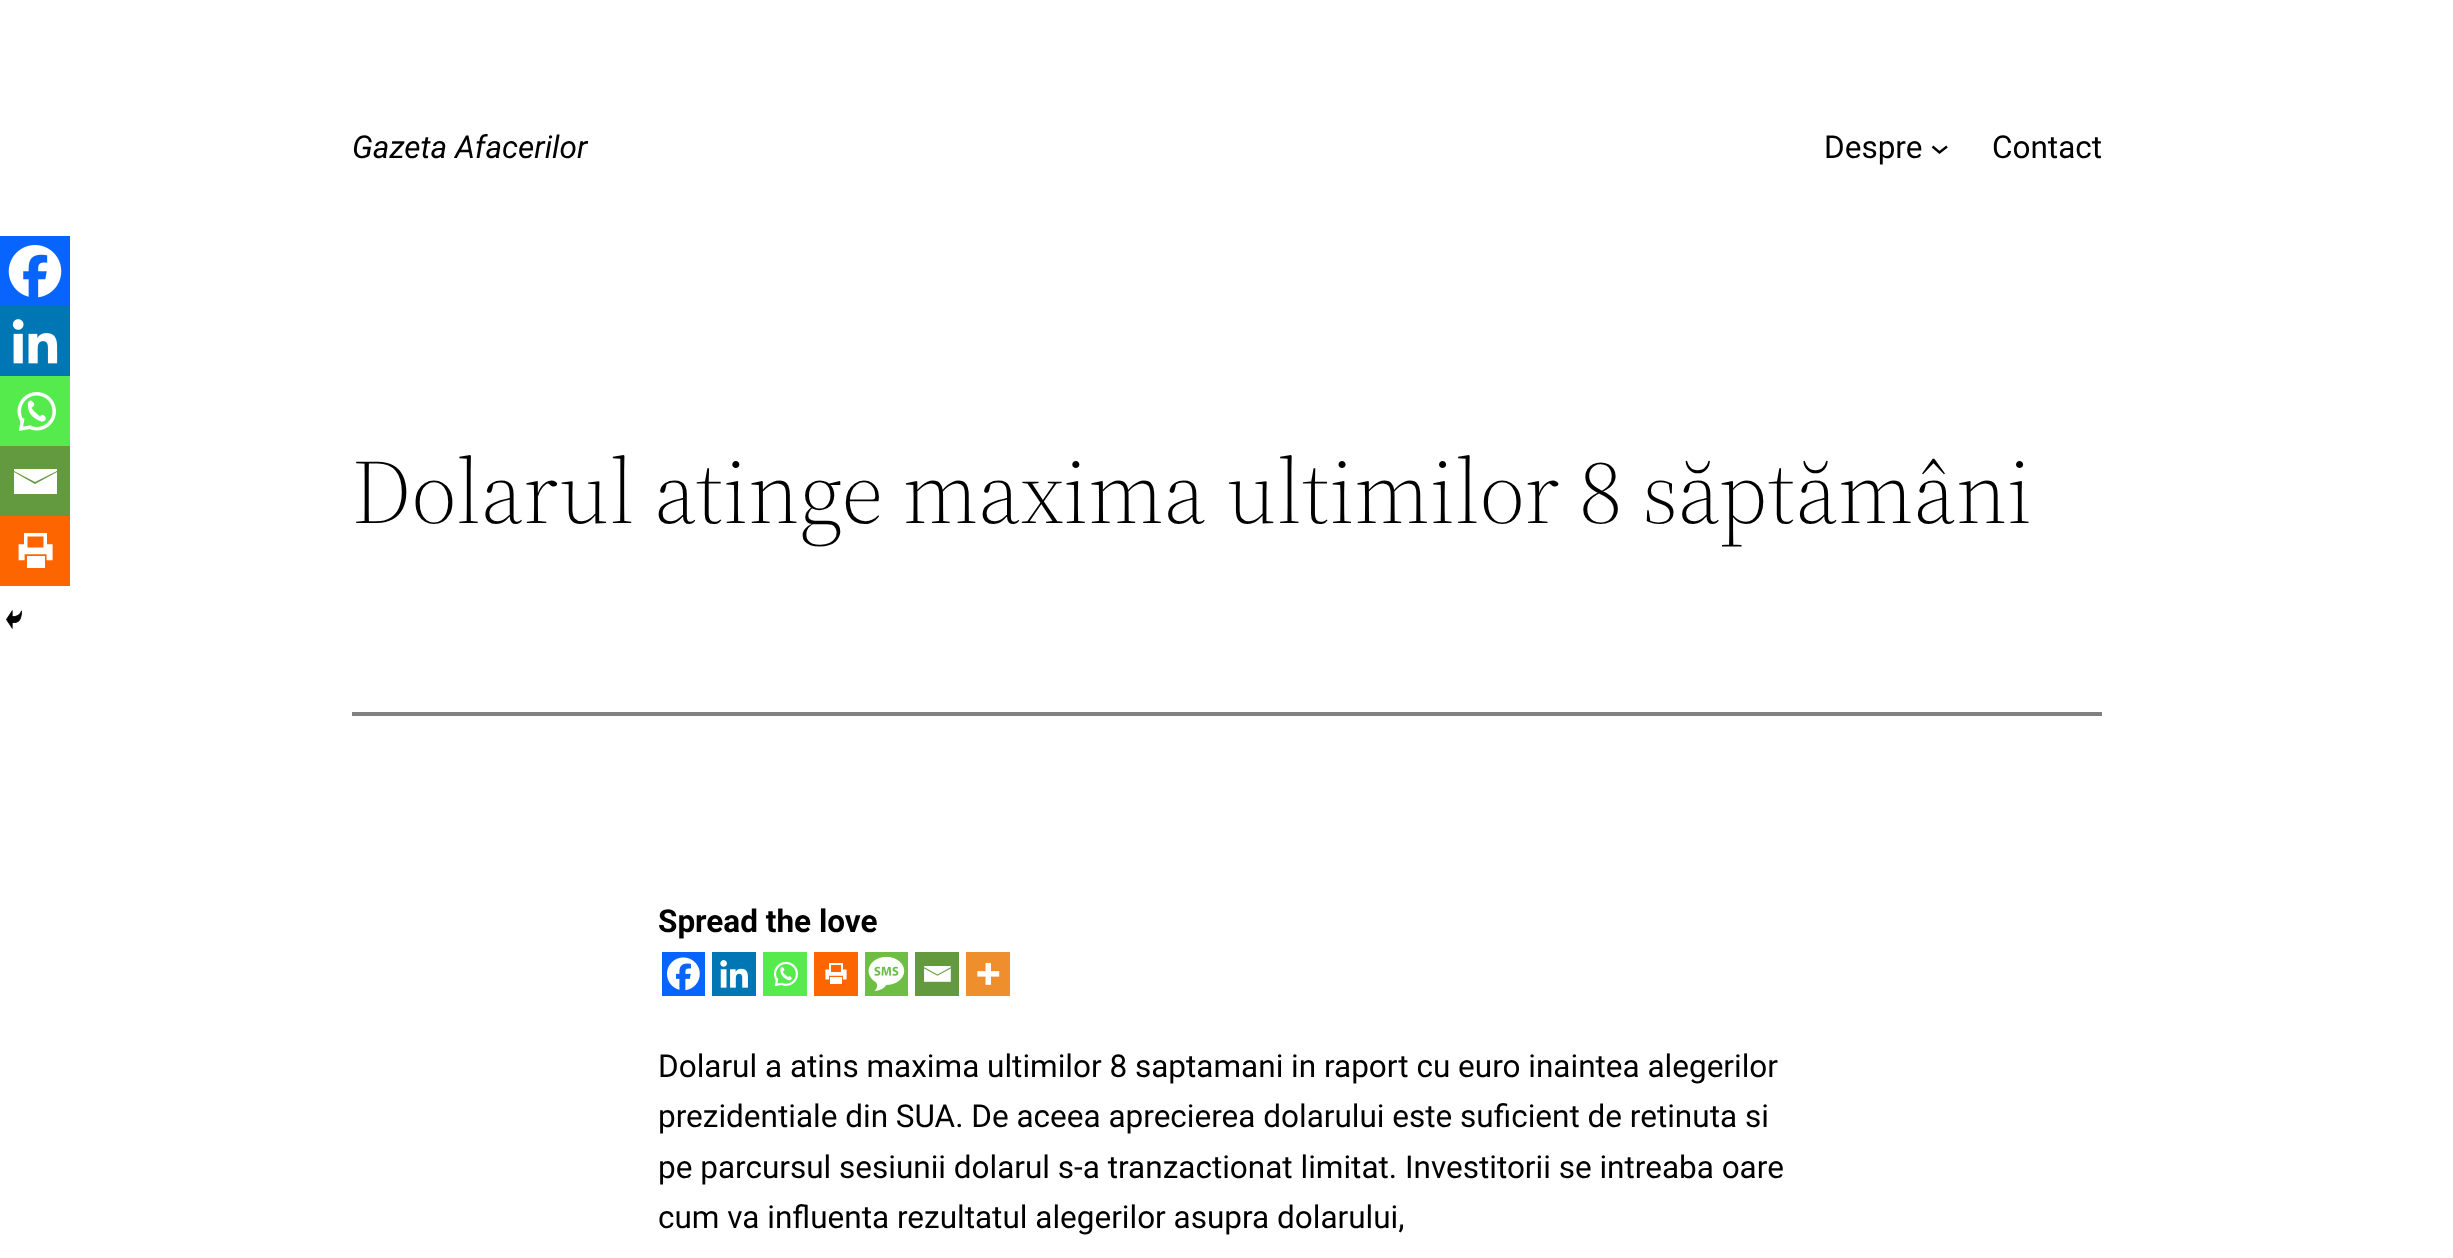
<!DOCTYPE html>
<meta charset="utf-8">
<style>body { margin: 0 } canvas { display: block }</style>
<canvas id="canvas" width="2453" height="1258"></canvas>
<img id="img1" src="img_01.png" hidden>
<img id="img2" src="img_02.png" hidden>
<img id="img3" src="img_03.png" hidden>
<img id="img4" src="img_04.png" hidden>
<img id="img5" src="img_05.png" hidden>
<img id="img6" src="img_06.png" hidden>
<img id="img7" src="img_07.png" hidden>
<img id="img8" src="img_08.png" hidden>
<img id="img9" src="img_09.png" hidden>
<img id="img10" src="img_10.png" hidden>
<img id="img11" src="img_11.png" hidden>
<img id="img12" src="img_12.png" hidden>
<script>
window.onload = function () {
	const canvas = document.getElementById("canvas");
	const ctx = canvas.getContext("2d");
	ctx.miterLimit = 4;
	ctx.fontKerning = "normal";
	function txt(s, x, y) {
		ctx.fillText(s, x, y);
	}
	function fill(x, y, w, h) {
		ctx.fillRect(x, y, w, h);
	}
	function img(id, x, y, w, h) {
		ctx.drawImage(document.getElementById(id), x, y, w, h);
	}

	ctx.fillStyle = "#FFFFFF";
	fill(0, 0, 2453, 1258);
	ctx.beginPath();
	ctx.moveTo(1932.5, 146.5);
	ctx.lineTo(1939.5, 152.5);
	ctx.lineTo(1947, 146.5);
	ctx.strokeStyle = "#000000";
	ctx.lineWidth = 2.4;
	ctx.stroke();
	ctx.fillStyle = "#808080";
	fill(352, 712, 1750, 4);
	ctx.fillStyle = "#0765FE";
	fill(0, 236, 70, 70);
	img("img1", 8, 245, 54, 53);
	ctx.fillStyle = "#0077B5";
	fill(0, 306, 70, 70);
	img("img2", 12, 319, 46, 45);
	ctx.fillStyle = "#55EB4C";
	fill(0, 376, 70, 70);
	img("img3", 17, 392, 39, 39);
	ctx.fillStyle = "#649A3F";
	fill(0, 446, 70, 70);
	ctx.fillStyle = "#FFFFFF";
	ctx.beginPath();
	ctx.moveTo(12, 469);
	ctx.lineTo(57, 469);
	ctx.lineTo(57, 471);
	ctx.lineTo(35, 482);
	ctx.lineTo(14, 471);
	ctx.lineTo(14, 469);
	ctx.moveTo(14, 472);
	ctx.lineTo(35, 484);
	ctx.lineTo(57, 472);
	ctx.lineTo(57, 494);
	ctx.lineTo(14, 494);
	ctx.lineTo(14, 472);
	ctx.fill();
	ctx.fillStyle = "#FD6500";
	fill(0, 516, 70, 70);
	img("img4", 18, 533, 35, 35);
	img("img5", 6, 609, 16, 21);
	ctx.fillStyle = "#0765FE";
	fill(662, 952, 43, 44);
	img("img6", 667, 957, 33, 34);
	ctx.fillStyle = "#0077B5";
	fill(712, 952, 44, 44);
	img("img7", 720, 960, 28, 28);
	ctx.fillStyle = "#55EB4C";
	fill(763, 952, 44, 44);
	img("img8", 773, 961, 25, 26);
	ctx.fillStyle = "#FD6500";
	fill(814, 952, 44, 44);
	img("img9", 825, 963, 22, 21);
	ctx.fillStyle = "#6EBE45";
	fill(865, 952, 43, 44);
	img("img10", 868, 956, 37, 35);
	ctx.fillStyle = "#649A3F";
	fill(915, 952, 44, 44);
	img("img11", 924, 966, 27, 16);
	ctx.fillStyle = "#EE8E2D";
	fill(966, 952, 44, 44);
	img("img12", 977, 962, 23, 23);
	ctx.font = "italic 31.5px Roboto";
	ctx.fillStyle = "#000000";
	txt("Gazeta Afacerilor", 352, 158);
	ctx.font = "31.5px Roboto";
	txt("Despre", 1824, 158);
	txt("Contact", 1992, 158);
	ctx.font = "300 91px 'Source Serif 4'";
	txt("Dolarul atinge maxima ultimilor 8 săptămâni", 352, 523);
	ctx.font = "bold 31.5px Roboto";
	txt("Spread the love", 658, 932);
	ctx.font = "31.5px Roboto";
	txt("Dolarul a atins maxima ultimilor 8 saptamani in raport cu euro inaintea alegerilor", 658, 1077);
	txt("prezidentiale din SUA. De aceea aprecierea dolarului este suficient de retinuta si", 658, 1127);
	txt("pe parcursul sesiunii dolarul s-a tranzactionat limitat. Investitorii se intreaba oare", 658, 1178);
	txt("cum va influenta rezultatul alegerilor asupra dolarului,", 658, 1228);
};
</script>
